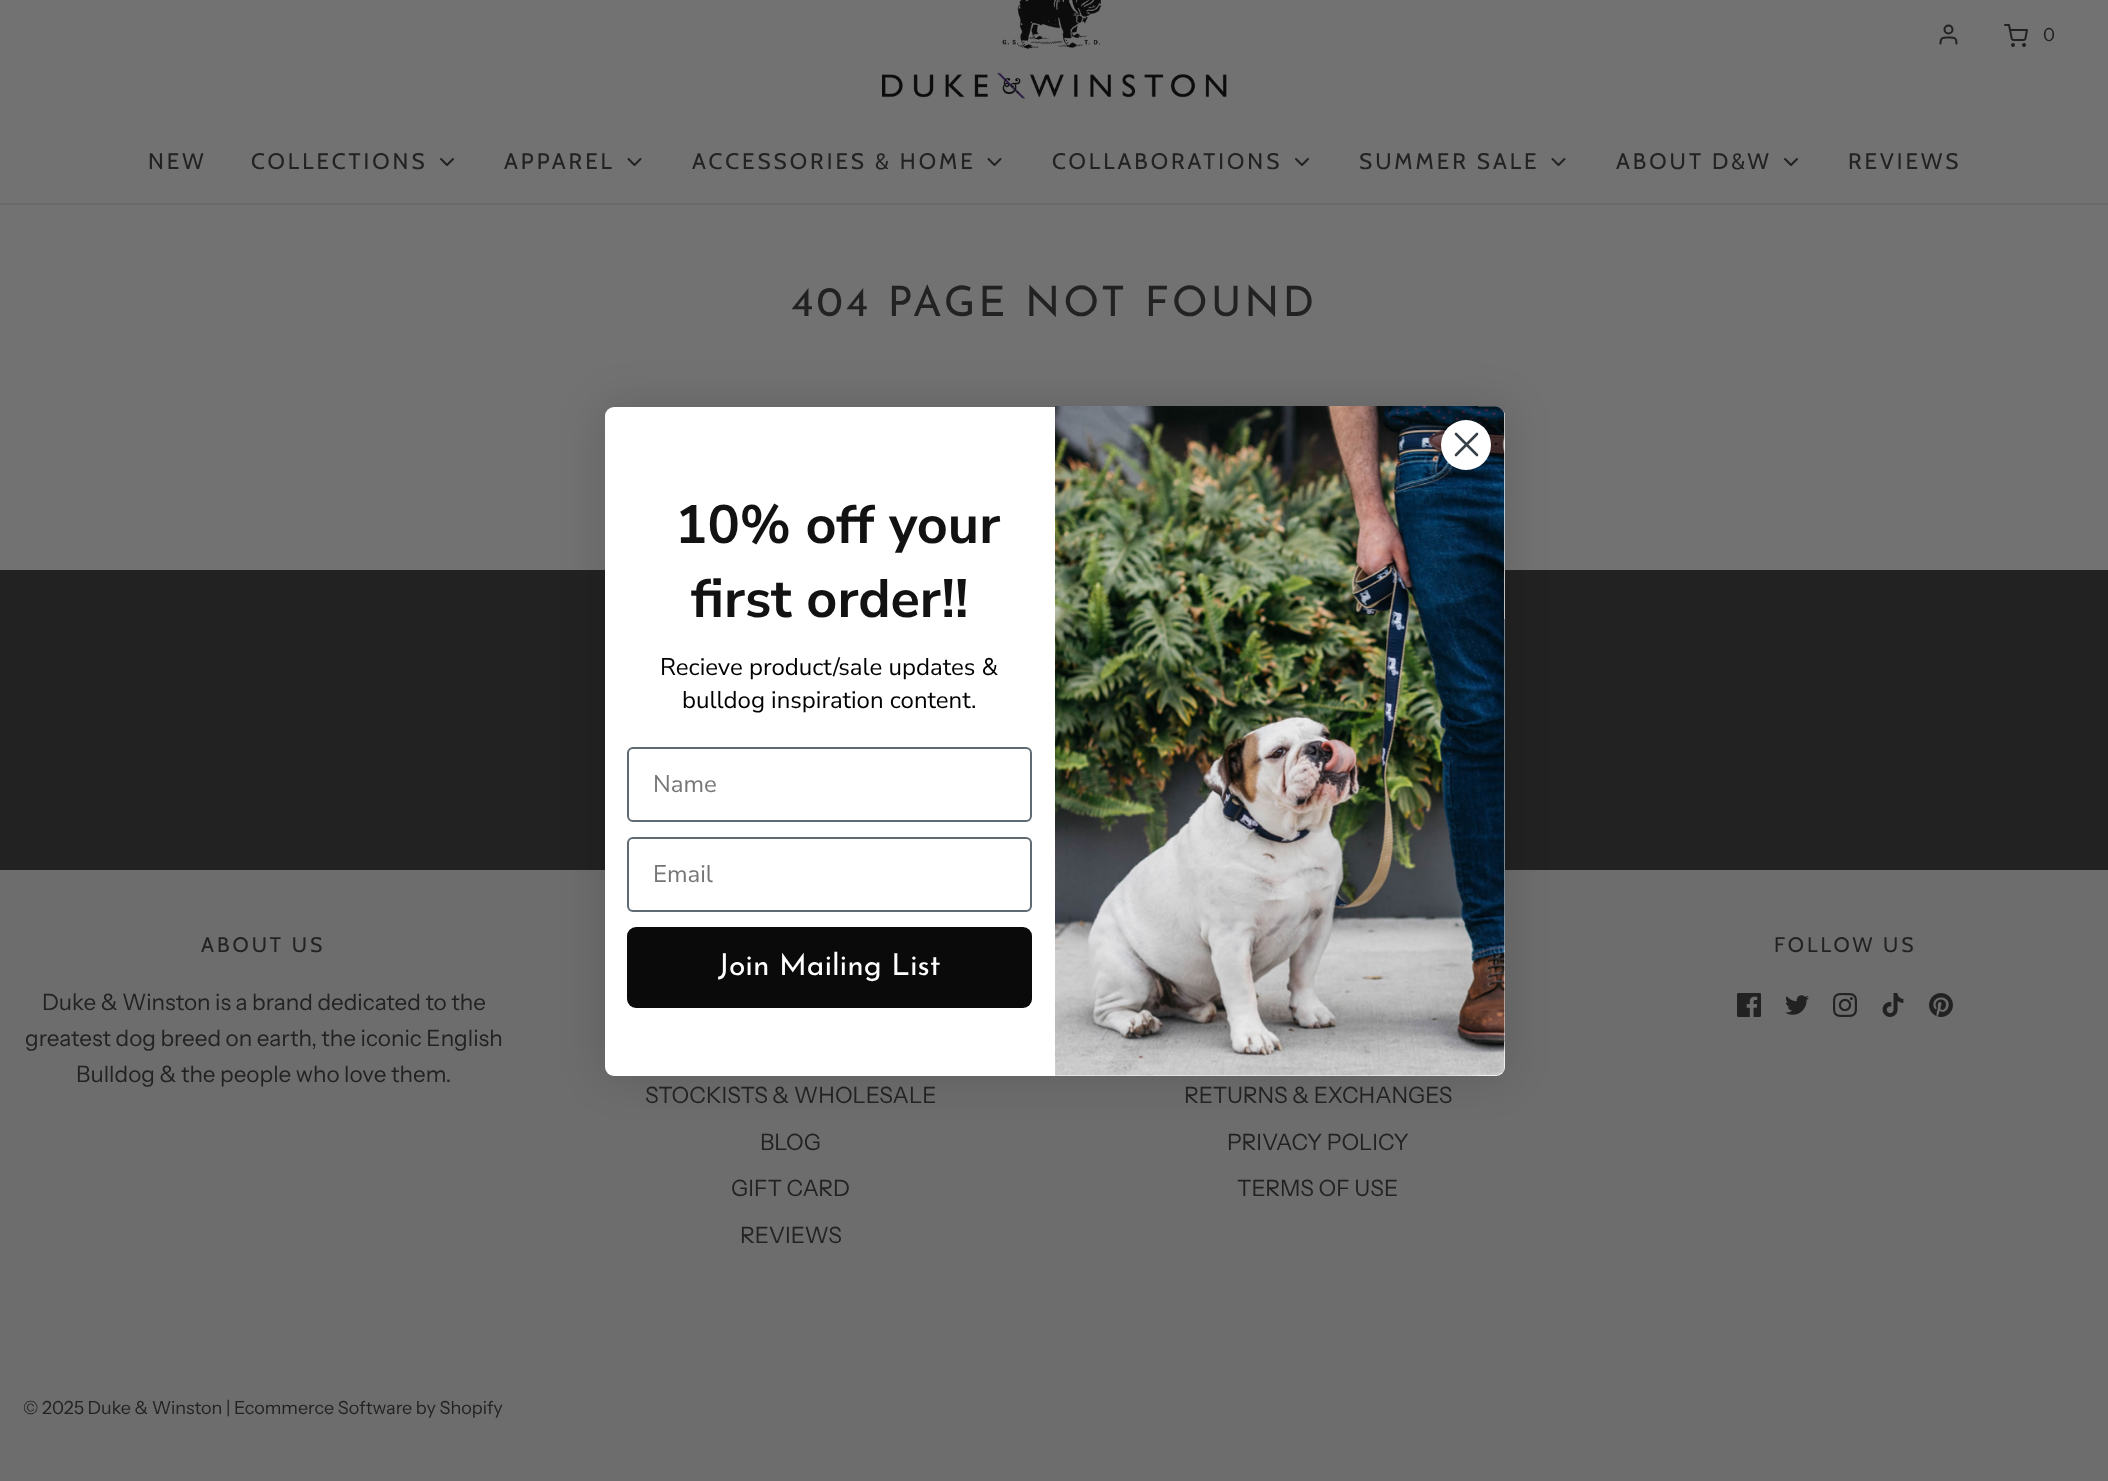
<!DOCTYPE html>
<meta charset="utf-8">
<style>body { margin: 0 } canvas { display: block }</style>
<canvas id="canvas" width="2108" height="1481"></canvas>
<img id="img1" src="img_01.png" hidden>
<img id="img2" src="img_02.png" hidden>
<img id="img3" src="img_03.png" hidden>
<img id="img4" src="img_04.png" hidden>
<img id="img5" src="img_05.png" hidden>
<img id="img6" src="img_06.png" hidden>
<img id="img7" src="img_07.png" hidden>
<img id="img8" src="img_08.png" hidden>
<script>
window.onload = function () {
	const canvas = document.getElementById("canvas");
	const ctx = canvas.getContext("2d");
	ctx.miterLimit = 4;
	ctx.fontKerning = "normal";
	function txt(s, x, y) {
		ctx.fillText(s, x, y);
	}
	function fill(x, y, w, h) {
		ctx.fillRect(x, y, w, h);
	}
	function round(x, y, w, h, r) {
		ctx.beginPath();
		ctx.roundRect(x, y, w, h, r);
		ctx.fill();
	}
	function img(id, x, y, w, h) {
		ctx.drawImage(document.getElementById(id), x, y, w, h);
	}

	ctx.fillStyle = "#727272";
	fill(0, 0, 2108, 1481);
	ctx.fillStyle = "#6A6A6A";
	fill(0, 204, 2108, 1);
	ctx.fillStyle = "#686868";
	fill(0, 203, 2108, 1);
	img("img1", 882, 0, 345, 99);
	ctx.beginPath();
	ctx.moveTo(1956.5, 43.5);
	ctx.bezierCurveTo(1956.5, 37, 1954, 37.5, 1948.5, 37.5);
	ctx.bezierCurveTo(1943, 37.5, 1940.5, 37, 1940.5, 43.5);
	ctx.strokeStyle = "#222222";
	ctx.lineWidth = 2;
	ctx.lineCap = "round";
	ctx.lineJoin = "round";
	ctx.stroke();
	ctx.beginPath();
	ctx.arc(1948.5, 29.5, 4, 0, Math.PI * 2);
	ctx.stroke();
	img("img2", 2004, 24, 24, 23);
	ctx.beginPath();
	ctx.moveTo(441, 159);
	ctx.lineTo(447, 165);
	ctx.lineTo(453, 159);
	ctx.stroke();
	ctx.beginPath();
	ctx.moveTo(628.5, 159);
	ctx.lineTo(634.5, 165);
	ctx.lineTo(640.5, 159);
	ctx.stroke();
	ctx.beginPath();
	ctx.moveTo(988.5, 159);
	ctx.lineTo(994.5, 165);
	ctx.lineTo(1000.5, 159);
	ctx.stroke();
	ctx.beginPath();
	ctx.moveTo(1296, 159);
	ctx.lineTo(1302, 165);
	ctx.lineTo(1308, 159);
	ctx.stroke();
	ctx.beginPath();
	ctx.moveTo(1552.5, 159);
	ctx.lineTo(1558.5, 165);
	ctx.lineTo(1564.5, 159);
	ctx.stroke();
	ctx.beginPath();
	ctx.moveTo(1785, 159);
	ctx.lineTo(1791, 165);
	ctx.lineTo(1797, 159);
	ctx.stroke();
	ctx.fillStyle = "#222222";
	fill(0, 570, 2108, 300);
	ctx.fillStyle = "#6D6D6D";
	fill(0, 870, 2108, 611);
	img("img3", 1737, 993, 24, 24);
	img("img4", 1785, 995, 24, 20);
	img("img5", 1833, 993, 24, 24);
	img("img6", 1882, 993, 22, 24);
	img("img7", 1929, 993, 24, 24);
	ctx.fillStyle = "rgba(0, 0, 0, 0.15)";
	ctx.filter = "blur(22.5px)";
	ctx.beginPath();
	ctx.roundRect(605, 407, 900, 669, 9);
	ctx.fill();
	ctx.filter = "none";
	ctx.fillStyle = "#FFFFFF";
	round(605, 407, 900, 669, 9);
	img("img8", 1055, 406, 450, 670);
	ctx.beginPath();
	ctx.arc(1466, 445, 25, 0, Math.PI * 2);
	ctx.fill();
	ctx.beginPath();
	ctx.moveTo(1456, 434);
	ctx.lineTo(1477, 455);
	ctx.moveTo(1456, 455);
	ctx.lineTo(1477, 434);
	ctx.closePath();
	ctx.strokeStyle = "#373F47";
	ctx.lineWidth = 2.6;
	ctx.stroke();
	ctx.beginPath();
	ctx.roundRect(628, 748, 403, 73, 5);
	ctx.strokeStyle = "#606A72";
	ctx.lineWidth = 2;
	ctx.lineJoin = "miter";
	ctx.stroke();
	ctx.beginPath();
	ctx.roundRect(628, 838, 403, 73, 5);
	ctx.stroke();
	ctx.fillStyle = "#0A0A0B";
	round(627, 927, 405, 81, 9);
	ctx.font = "18px Instrument Sans";
	ctx.fillStyle = "#222222";
	txt("0", 2043, 41);
	ctx.letterSpacing = "3px";
	ctx.font = "22.5px Cabin";
	txt("NEW", 148, 169);
	txt("COLLECTIONS", 251, 169);
	txt("APPAREL", 504, 169);
	txt("ACCESSORIES & HOME", 692, 169);
	txt("COLLABORATIONS", 1052, 169);
	txt("SUMMER SALE", 1359, 169);
	txt("ABOUT D&W", 1616, 169);
	txt("REVIEWS", 1848, 169);
	ctx.font = "100 42px Josefin Sans";
	txt("404 PAGE NOT FOUND", 791, 316);
	ctx.font = "21px Cabin";
	txt("ABOUT US", 201, 952);
	ctx.letterSpacing = "0px";
	ctx.font = "22.5px Instrument Sans";
	txt("Duke & Winston is a brand dedicated to the", 42, 1010);
	txt("greatest dog breed on earth, the iconic English", 25, 1046);
	txt("Bulldog & the people who love them.", 76, 1082);
	ctx.letterSpacing = "3px";
	ctx.font = "21px Cabin";
	txt("FOLLOW US", 1774, 952);
	ctx.letterSpacing = "0px";
	ctx.font = "22.5px Instrument Sans";
	txt("STOCKISTS & WHOLESALE", 645, 1103);
	txt("BLOG", 760, 1150);
	txt("GIFT CARD", 731, 1196);
	txt("REVIEWS", 740, 1243);
	txt("RETURNS & EXCHANGES", 1184, 1103);
	txt("PRIVACY POLICY", 1227, 1150);
	txt("TERMS OF USE", 1237, 1196);
	ctx.font = "18px Instrument Sans";
	txt("© 2025 Duke & Winston | Ecommerce Software by Shopify", 23, 1414);
	ctx.font = "bold 54px Nunito Sans";
	ctx.fillStyle = "#121212";
	txt("10% off your", 675, 543);
	txt("first order!!", 691, 617);
	ctx.font = "24px Nunito Sans";
	ctx.fillStyle = "#000000";
	txt("Recieve product/sale updates &", 660, 675);
	txt("bulldog inspiration content.", 682, 708);
	ctx.fillStyle = "#767676";
	txt("Name", 653, 792);
	txt("Email", 653, 882);
	ctx.font = "100 30px Josefin Sans";
	ctx.fillStyle = "#FFFFFF";
	txt("Join Mailing List", 718, 975);
};
</script>
